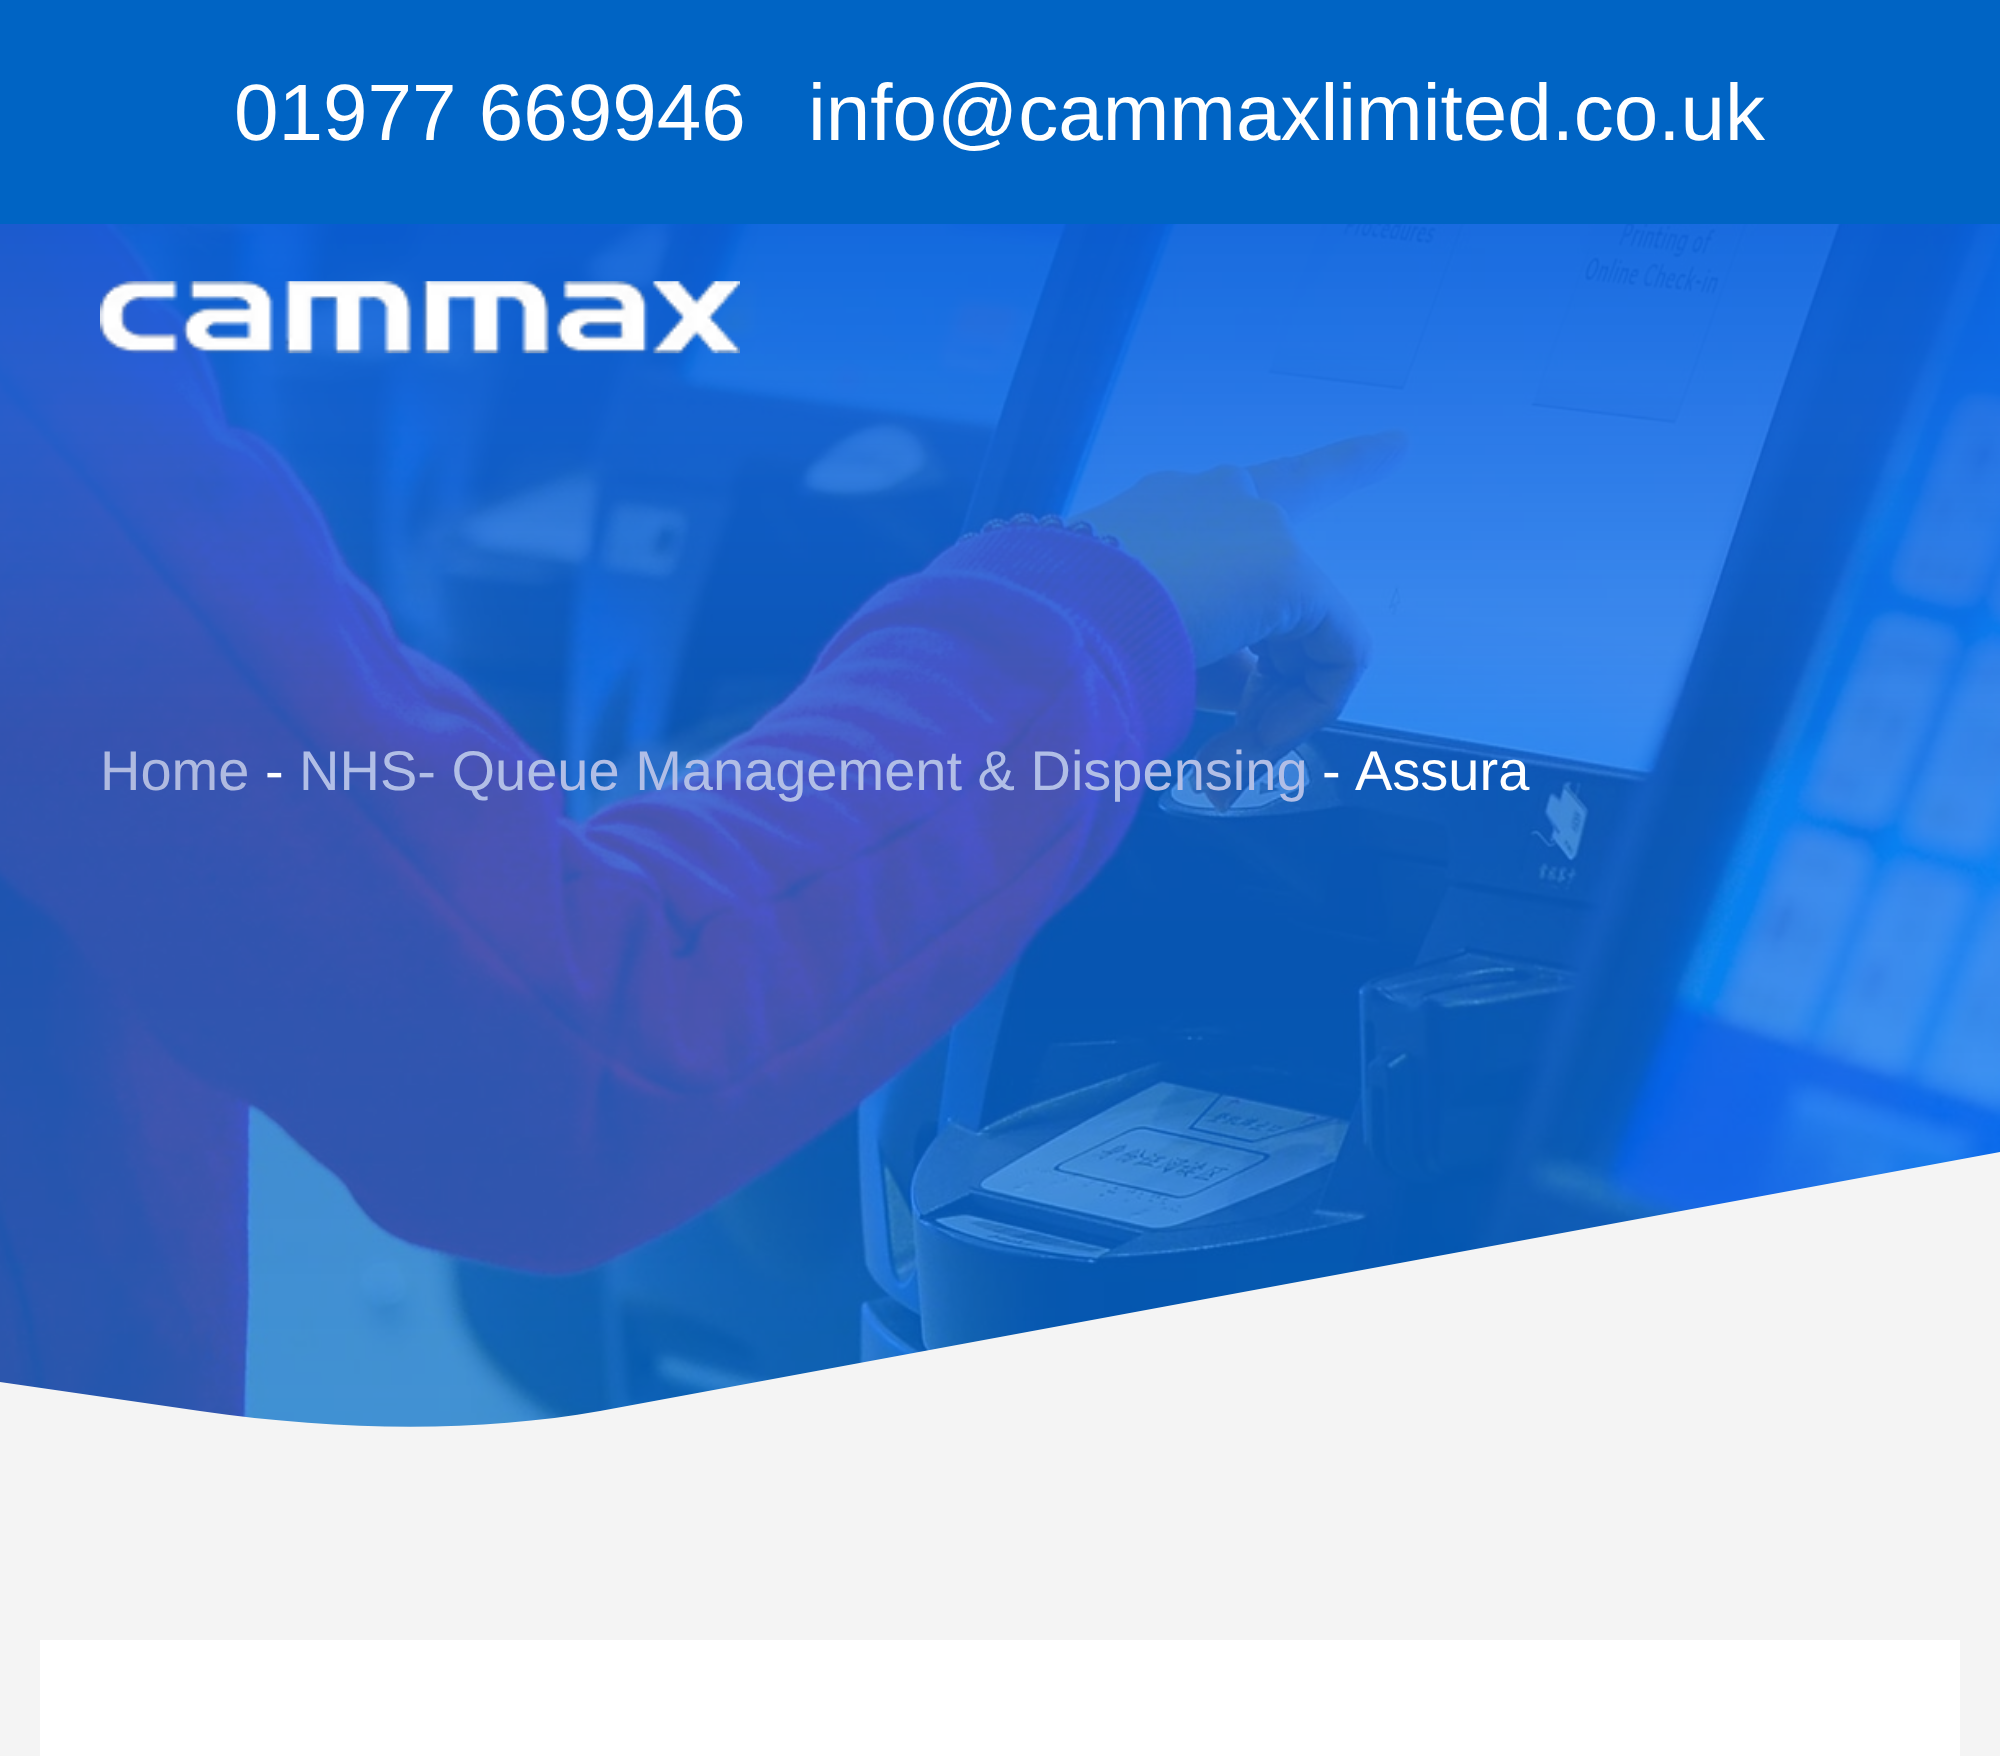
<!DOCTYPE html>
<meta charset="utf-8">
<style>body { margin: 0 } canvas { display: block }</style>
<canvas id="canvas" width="2000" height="1756"></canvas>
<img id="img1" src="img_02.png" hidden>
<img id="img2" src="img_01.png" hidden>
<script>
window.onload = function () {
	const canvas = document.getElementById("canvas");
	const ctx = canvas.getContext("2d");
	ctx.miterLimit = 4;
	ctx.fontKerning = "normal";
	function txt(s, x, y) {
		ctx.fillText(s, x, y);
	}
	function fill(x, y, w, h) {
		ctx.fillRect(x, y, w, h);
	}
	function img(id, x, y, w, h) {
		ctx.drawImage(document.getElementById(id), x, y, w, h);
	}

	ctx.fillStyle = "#FFFFFF";
	fill(0, 0, 2000, 1756);
	ctx.fillStyle = "#0064C4";
	fill(0, 0, 2000, 224);
	img("img1", 0, 224, 2000, 1203);
	img("img2", 100, 281, 640, 73);
	ctx.fillStyle = "#F4F4F4";
	ctx.beginPath();
	ctx.moveTo(0, 1382);
	ctx.lineTo(200, 1411);
	ctx.bezierCurveTo(347, 1432, 480, 1432, 600, 1411);
	ctx.lineTo(2000, 1152);
	ctx.lineTo(2000, 1440);
	ctx.lineTo(0, 1440);
	ctx.closePath();
	ctx.fill();
	fill(0, 1440, 2000, 316);
	ctx.fillStyle = "#FFFFFF";
	fill(40, 1640, 1920, 116);
	ctx.font = "80px Liberation Sans";
	txt("01977 669946", 234, 140);
	txt("info@cammaxlimited.co.uk", 808, 140);
	ctx.font = "56px Liberation Sans";
	ctx.fillStyle = "#AFBAE0";
	txt("Home", 100, 790);
	ctx.fillStyle = "#FFFFFF";
	txt("-", 265, 790);
	ctx.fillStyle = "#B1BEE6";
	txt("NHS- Queue Management & Dispensing", 299, 790);
	ctx.fillStyle = "#FFFFFF";
	txt("-", 1322, 790);
	txt("Assura", 1355, 790);
};
</script>
